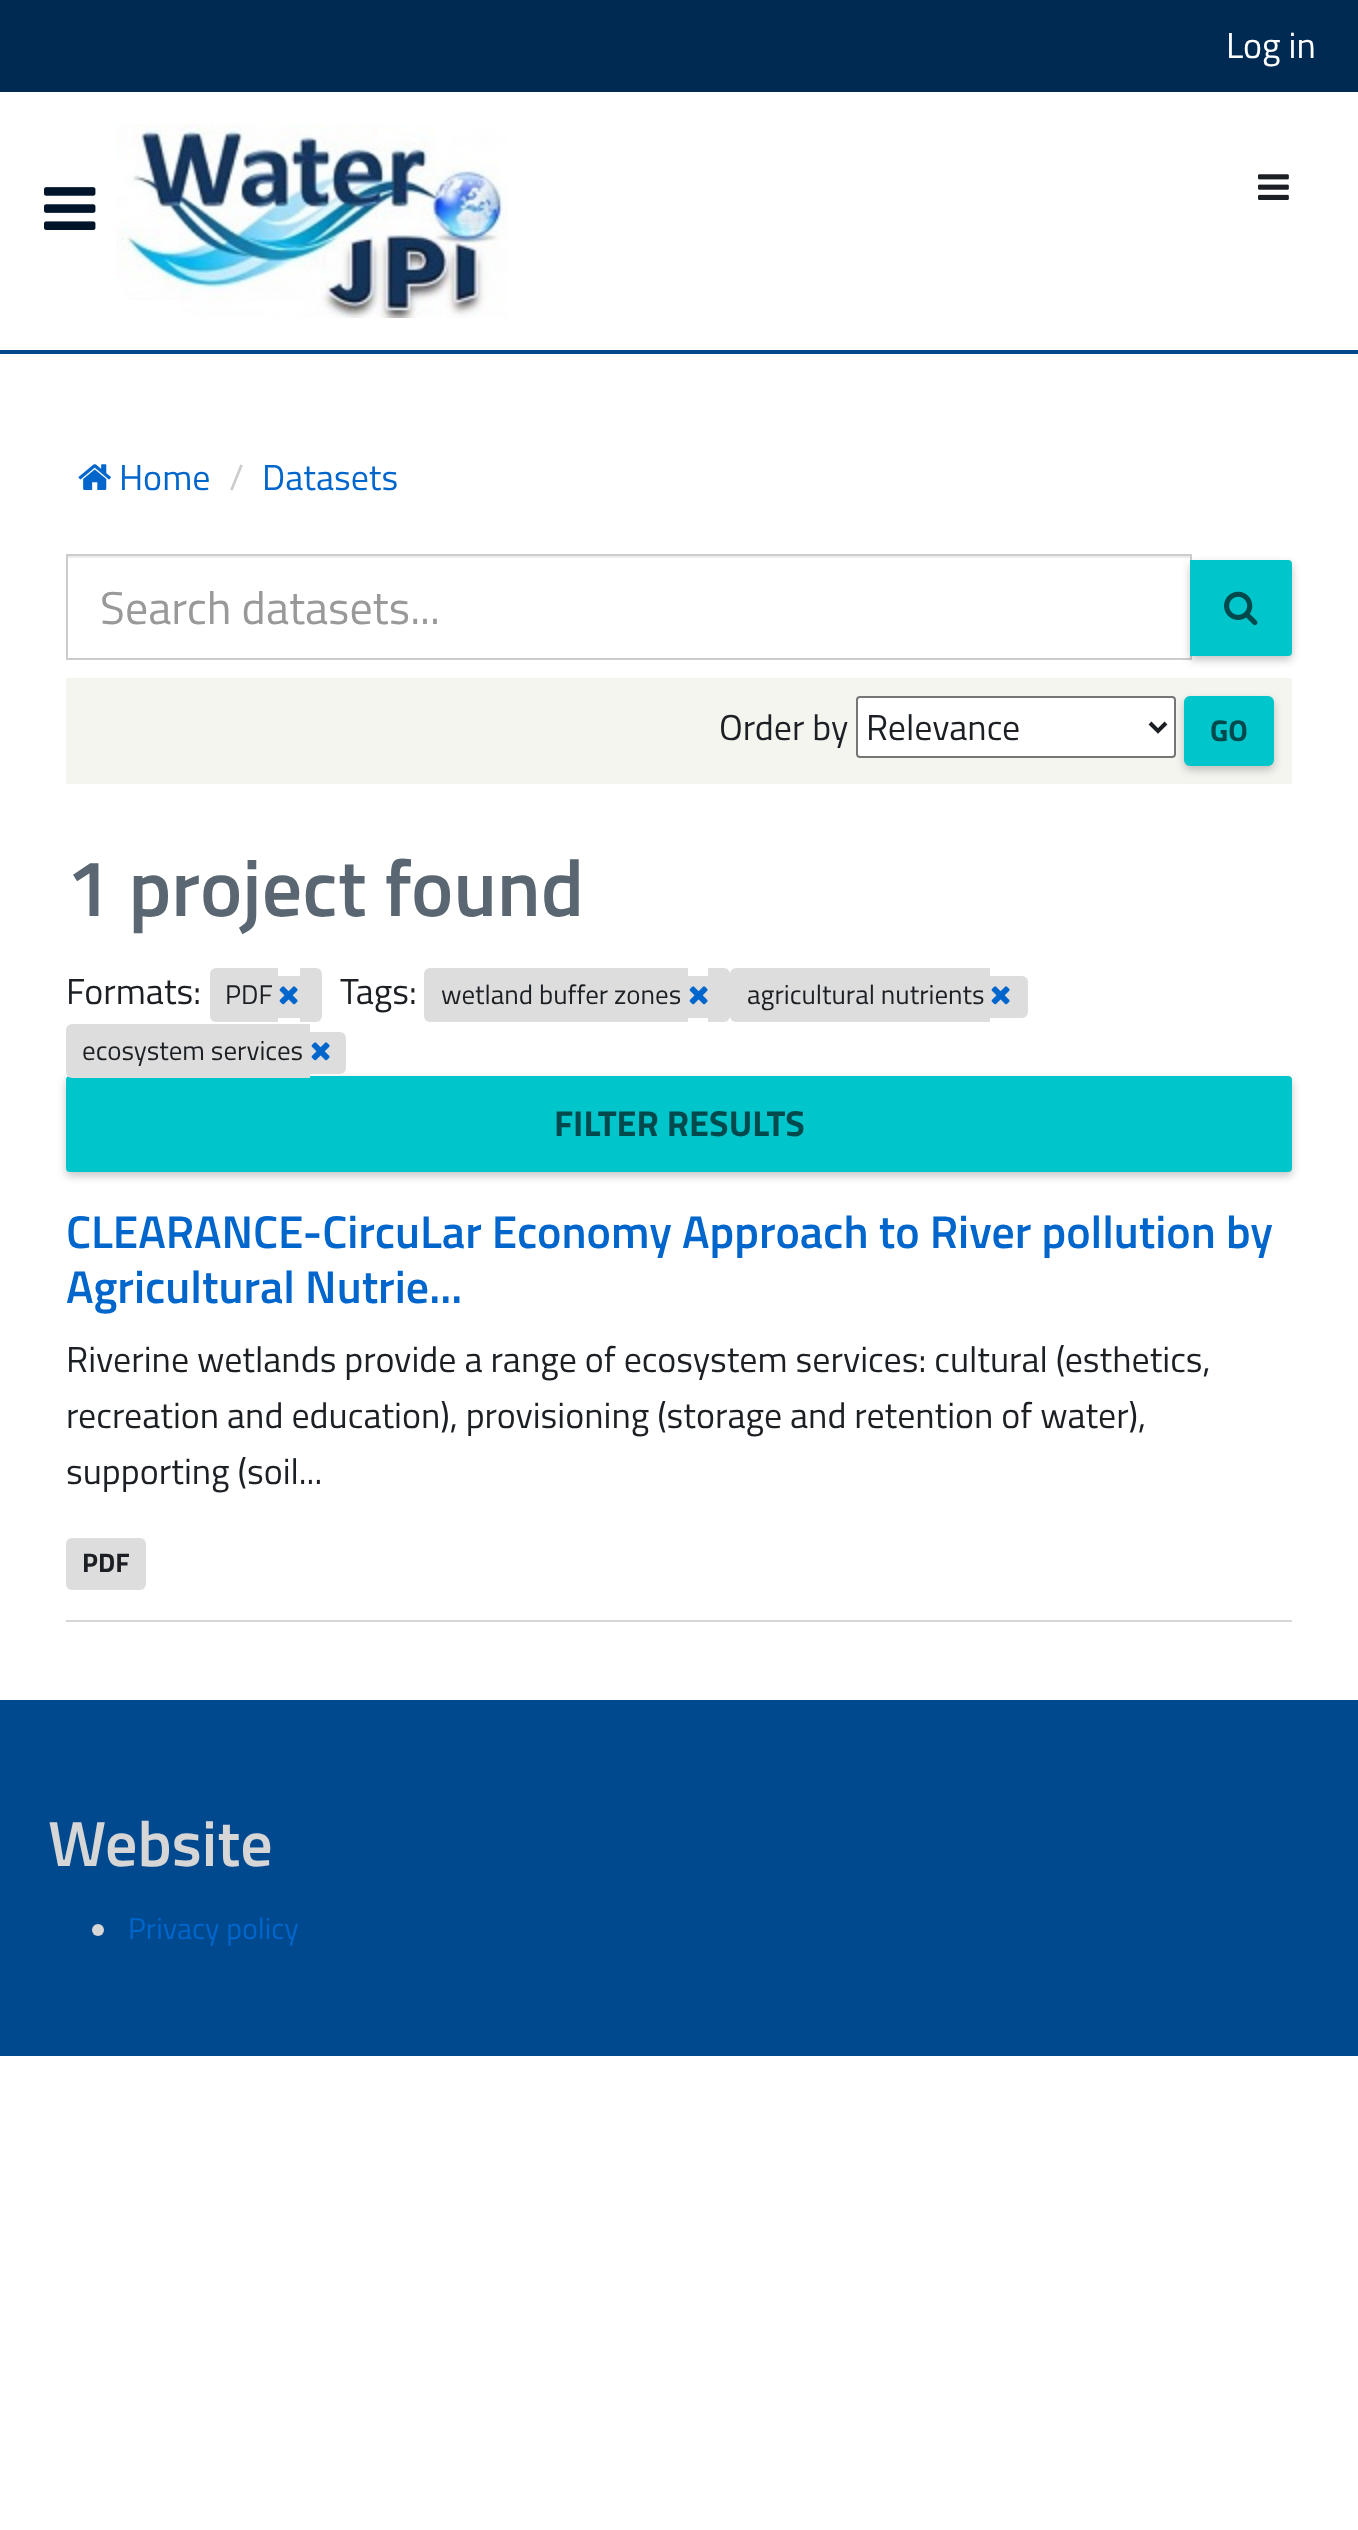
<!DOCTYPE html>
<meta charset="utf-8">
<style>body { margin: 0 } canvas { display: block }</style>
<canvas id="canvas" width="1358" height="2530"></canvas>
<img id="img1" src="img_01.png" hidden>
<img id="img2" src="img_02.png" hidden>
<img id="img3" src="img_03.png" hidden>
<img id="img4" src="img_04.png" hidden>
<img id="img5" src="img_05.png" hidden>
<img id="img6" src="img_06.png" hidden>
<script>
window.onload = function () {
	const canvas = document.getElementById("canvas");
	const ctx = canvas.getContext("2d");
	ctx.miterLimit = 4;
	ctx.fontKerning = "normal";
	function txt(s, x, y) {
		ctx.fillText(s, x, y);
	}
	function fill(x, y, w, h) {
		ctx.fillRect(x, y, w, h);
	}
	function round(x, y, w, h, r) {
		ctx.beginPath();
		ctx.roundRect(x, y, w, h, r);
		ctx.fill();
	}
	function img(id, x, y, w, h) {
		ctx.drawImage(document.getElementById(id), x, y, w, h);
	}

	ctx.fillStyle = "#FFFFFF";
	fill(0, 0, 1358, 2530);
	ctx.fillStyle = "#002A52";
	fill(0, 0, 1358, 92);
	ctx.fillStyle = "#00498F";
	fill(0, 350, 1358, 4);
	img("img1", 44, 187, 52, 43);
	img("img2", 116, 124, 392, 194);
	img("img3", 1258, 174, 31, 26);
	img("img4", 78, 464, 33, 26);
	ctx.fillStyle = "#ECECEC";
	fill(68, 556, 1122, 2);
	ctx.strokeStyle = "#CCCCCC";
	ctx.lineWidth = 2;
	ctx.strokeRect(67, 555, 1124, 104);
	ctx.fillStyle = "rgba(28, 32, 36, 0.26)";
	ctx.filter = "blur(4px)";
	ctx.beginPath();
	ctx.roundRect(1190, 564, 102, 96, 4);
	ctx.fill();
	ctx.filter = "none";
	ctx.fillStyle = "#00C5CA";
	ctx.beginPath();
	ctx.roundRect(1191, 561, 100, 94, [0, 3, 3, 0]);
	ctx.fill();
	ctx.strokeStyle = "#00C5CA";
	ctx.stroke();
	img("img5", 1224, 591, 34, 35);
	ctx.fillStyle = "#F5F5F0";
	fill(66, 678, 1226, 106);
	ctx.fillStyle = "#FFFFFF";
	ctx.beginPath();
	ctx.roundRect(857, 697, 318, 60, 3);
	ctx.fill();
	ctx.strokeStyle = "#767676";
	ctx.stroke();
	ctx.beginPath();
	ctx.moveTo(1150, 723);
	ctx.lineTo(1158, 731);
	ctx.lineTo(1166, 723);
	ctx.strokeStyle = "#1C2024";
	ctx.lineWidth = 4;
	ctx.stroke();
	ctx.fillStyle = "rgba(28, 32, 36, 0.26)";
	ctx.filter = "blur(4px)";
	ctx.beginPath();
	ctx.roundRect(1184, 700, 90, 70, 6);
	ctx.fill();
	ctx.filter = "none";
	ctx.fillStyle = "#00C5CA";
	ctx.beginPath();
	ctx.roundRect(1185, 697, 88, 68, 5);
	ctx.fill();
	ctx.strokeStyle = "#00C5CA";
	ctx.lineWidth = 2;
	ctx.stroke();
	ctx.fillStyle = "#DDDDDD";
	ctx.beginPath();
	ctx.roundRect(210, 968, 68, 54, [6, 0, 0, 6]);
	ctx.fill();
	fill(278, 976, 22, 42);
	ctx.beginPath();
	ctx.roundRect(300, 968, 22, 54, [0, 6, 6, 0]);
	ctx.fill();
	img("img6", 279, 986, 19, 19);
	ctx.beginPath();
	ctx.roundRect(424, 968, 264, 54, [6, 0, 0, 6]);
	ctx.fill();
	fill(688, 976, 20, 42);
	ctx.beginPath();
	ctx.roundRect(708, 968, 22, 54, [0, 6, 6, 0]);
	ctx.fill();
	img("img6", 689, 986, 19, 19);
	ctx.beginPath();
	ctx.roundRect(730, 968, 260, 54, [6, 0, 0, 6]);
	ctx.fill();
	ctx.beginPath();
	ctx.roundRect(990, 976, 38, 42, [0, 6, 6, 0]);
	ctx.fill();
	img("img6", 991, 986, 19, 19);
	ctx.fillStyle = "rgba(28, 32, 36, 0.26)";
	ctx.filter = "blur(4px)";
	ctx.beginPath();
	ctx.roundRect(66, 1080, 1226, 96, 4);
	ctx.fill();
	ctx.filter = "none";
	ctx.fillStyle = "#00C5CA";
	ctx.beginPath();
	ctx.roundRect(67, 1077, 1224, 94, 3);
	ctx.fill();
	ctx.stroke();
	ctx.fillStyle = "#DDDDDD";
	ctx.beginPath();
	ctx.roundRect(66, 1024, 244, 54, [6, 0, 0, 6]);
	ctx.fill();
	ctx.beginPath();
	ctx.roundRect(310, 1032, 36, 42, [0, 6, 6, 0]);
	ctx.fill();
	img("img6", 311, 1042, 19, 19);
	ctx.fillStyle = "#D6D6D6";
	fill(66, 1620, 1226, 2);
	ctx.fillStyle = "#DDDDDD";
	round(66, 1538, 80, 52, 6);
	ctx.fillStyle = "#00498F";
	fill(0, 1700, 1358, 356);
	ctx.fillStyle = "#D6D6D6";
	ctx.beginPath();
	ctx.arc(98, 1930, 6, 0, Math.PI * 2);
	ctx.fill();
	ctx.font = "36px Titillium Web";
	ctx.fillStyle = "#FFFFFF";
	txt("Log in", 1226, 58);
	ctx.fillStyle = "#0066CC";
	txt("Home", 119, 490);
	ctx.fillStyle = "#CCCCCC";
	txt("/", 229, 490);
	ctx.fillStyle = "#0066CC";
	txt("Datasets", 262, 490);
	ctx.font = "46px Titillium Web";
	ctx.fillStyle = "#999999";
	txt("Search datasets...", 100, 624);
	ctx.font = "36px Titillium Web";
	ctx.fillStyle = "#1C2024";
	txt("Order by", 719, 740);
	txt("Relevance", 866, 740);
	ctx.font = "bold 30px Titillium Web";
	ctx.fillStyle = "#004A4D";
	txt("GO", 1210, 741);
	ctx.font = "600 80px Titillium Web";
	ctx.fillStyle = "#5A6772";
	txt("1 project found", 66, 916);
	ctx.font = "36px Titillium Web";
	ctx.fillStyle = "#1C2024";
	txt("Formats:", 66, 1004);
	ctx.font = "27px Titillium Web";
	txt("PDF", 225, 1004);
	ctx.font = "36px Titillium Web";
	txt("Tags:", 340, 1004);
	ctx.font = "27px Titillium Web";
	txt("wetland buffer zones", 441, 1004);
	txt("agricultural nutrients", 747, 1004);
	txt("ecosystem services", 82, 1060);
	ctx.font = "bold 36px Titillium Web";
	ctx.fillStyle = "#004A4D";
	txt("FILTER RESULTS", 554, 1136);
	ctx.font = "600 46px Titillium Web";
	ctx.fillStyle = "#0066CC";
	txt("CLEARANCE-CircuLar Economy Approach to River pollution by", 66, 1248);
	txt("Agricultural Nutrie...", 66, 1303);
	ctx.font = "36px Titillium Web";
	ctx.fillStyle = "#1C2024";
	txt("Riverine wetlands provide a range of ecosystem services: cultural (esthetics,", 66, 1372);
	txt("recreation and education), provisioning (storage and retention of water),", 66, 1428);
	txt("supporting (soil...", 66, 1484);
	ctx.font = "bold 27px Titillium Web";
	txt("PDF", 82, 1572);
	ctx.font = "600 64px Titillium Web";
	ctx.fillStyle = "#D6D6D6";
	txt("Website", 48, 1866);
	ctx.font = "30px Titillium Web";
	ctx.fillStyle = "#0066CC";
	txt("Privacy policy", 128, 1939);
};
</script>
